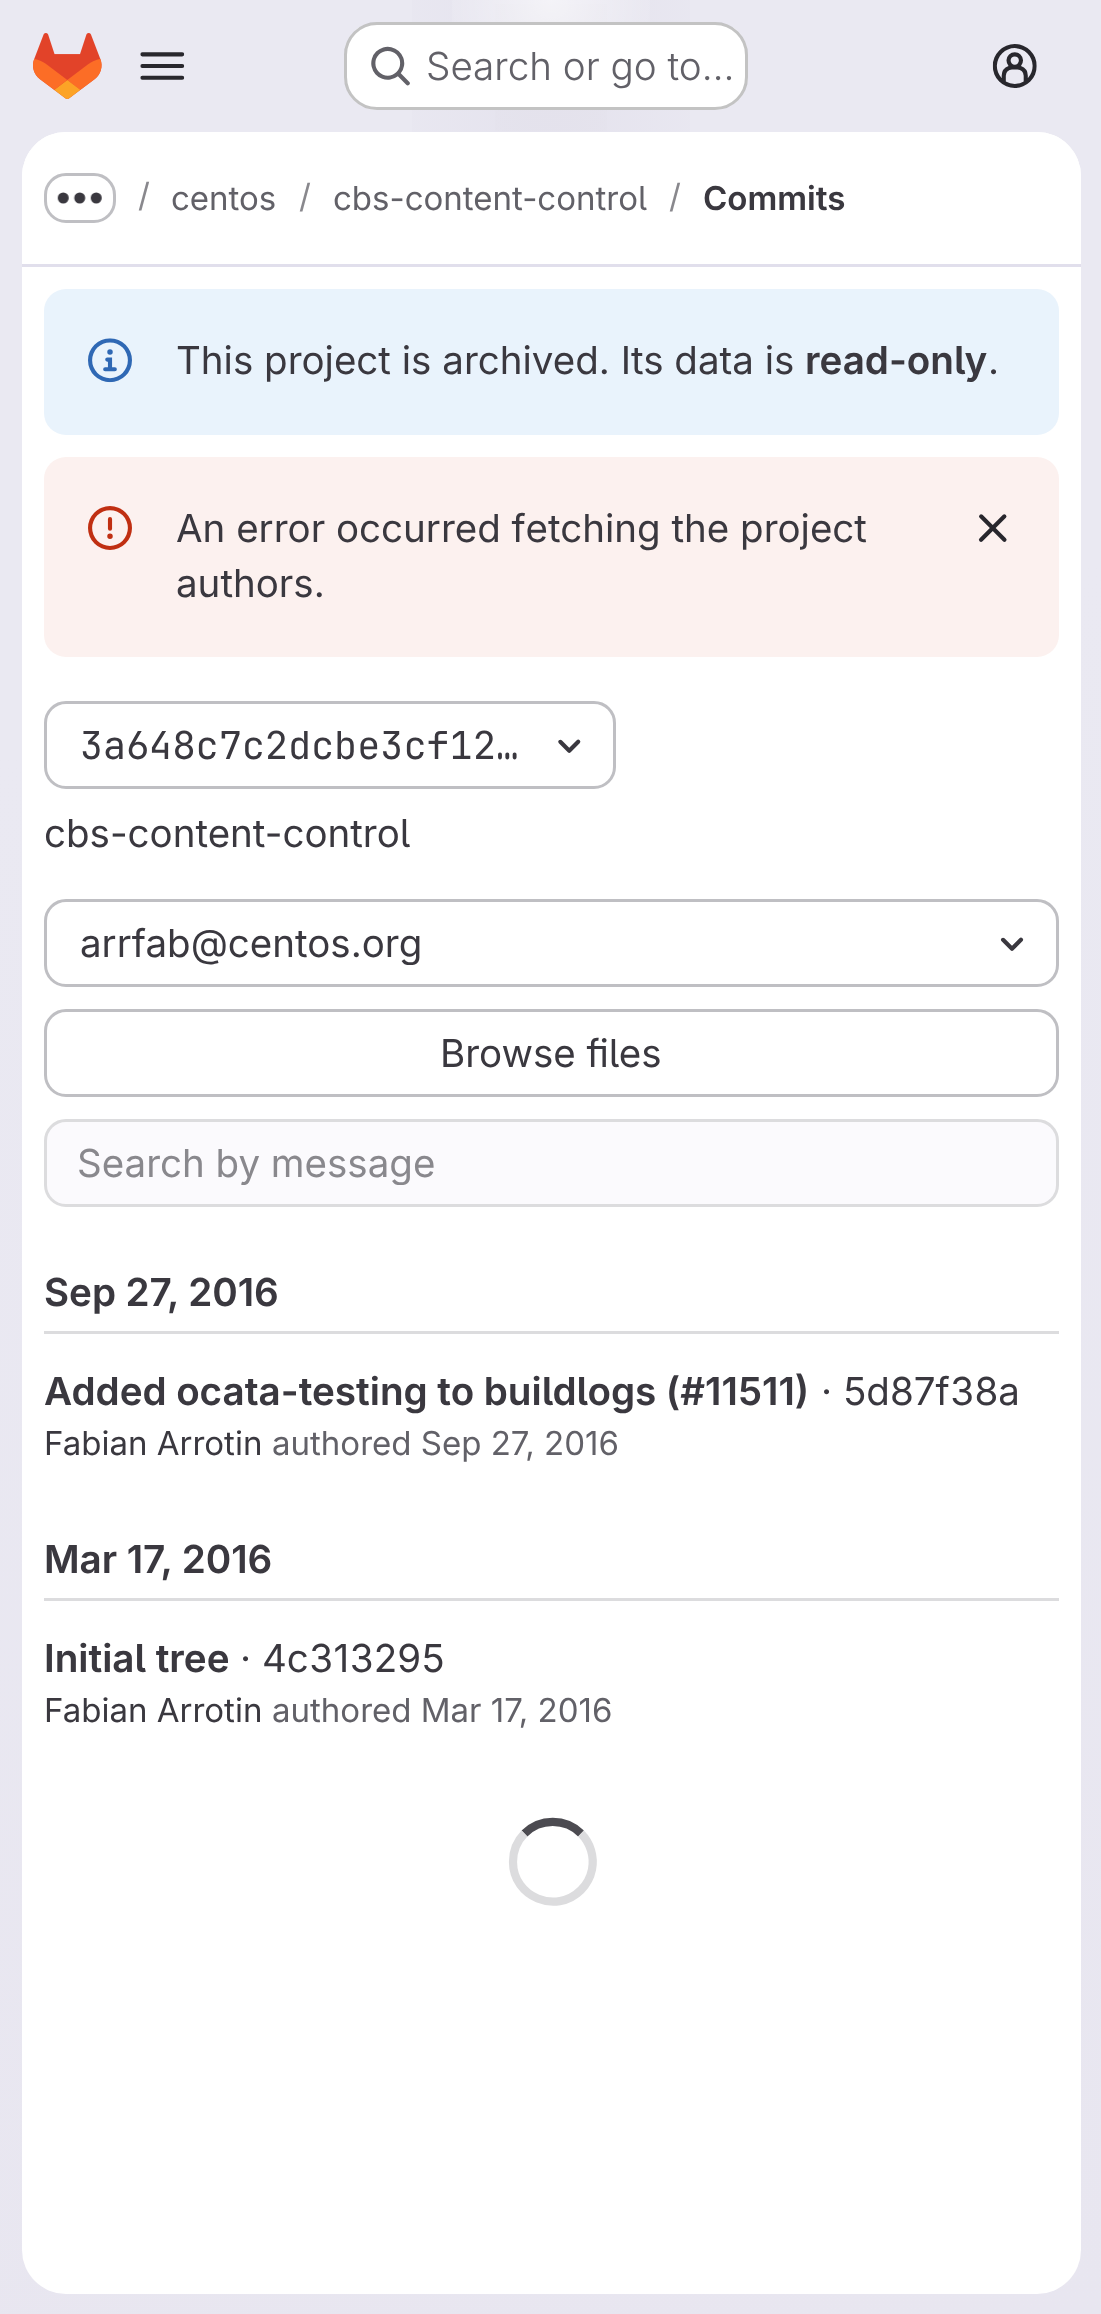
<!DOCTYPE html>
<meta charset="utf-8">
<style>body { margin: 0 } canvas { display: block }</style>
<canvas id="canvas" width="1101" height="2314"></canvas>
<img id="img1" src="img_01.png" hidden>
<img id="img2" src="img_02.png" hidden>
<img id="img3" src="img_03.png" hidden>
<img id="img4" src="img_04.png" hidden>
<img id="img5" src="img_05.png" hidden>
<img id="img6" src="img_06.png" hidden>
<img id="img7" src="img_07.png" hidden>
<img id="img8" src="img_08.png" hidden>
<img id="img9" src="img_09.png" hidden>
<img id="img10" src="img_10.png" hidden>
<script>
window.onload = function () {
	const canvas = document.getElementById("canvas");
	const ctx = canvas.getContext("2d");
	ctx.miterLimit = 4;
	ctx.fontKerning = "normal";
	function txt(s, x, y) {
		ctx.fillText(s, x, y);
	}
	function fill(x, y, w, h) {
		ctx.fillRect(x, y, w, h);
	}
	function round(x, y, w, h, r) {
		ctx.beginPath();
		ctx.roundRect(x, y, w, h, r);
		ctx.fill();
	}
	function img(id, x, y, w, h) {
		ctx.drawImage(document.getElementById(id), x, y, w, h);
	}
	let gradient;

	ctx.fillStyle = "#FFFFFF";
	fill(0, 0, 1101, 2314);
	gradient = ctx.createLinearGradient(766, 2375, 337, -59);
	gradient.addColorStop(0, "#E8E6F0");
	gradient.addColorStop(0.7, "#EAE9F2");
	ctx.fillStyle = gradient;
	fill(0, 0, 1101, 2314);
	gradient = ctx.createRadialGradient(551, 0, 0, 551, 0, 551);
	gradient.addColorStop(0, "#E4E2ED");
	gradient.addColorStop(0.35, "rgba(228, 226, 237, 0)");
	ctx.fillStyle = gradient;
	ctx.beginPath();
	ctx.rect(412, 0, 278, 132);
	ctx.save();
	ctx.clip();
	ctx.scale(1, 2316 / 551);
	ctx.fillRect(0, 0, 1101, 551);
	ctx.restore();
	gradient = ctx.createRadialGradient(551, 0, 0, 551, 0, 551);
	gradient.addColorStop(0, "#E4E2EC");
	gradient.addColorStop(0.25, "rgba(228, 226, 236, 0)");
	ctx.fillStyle = gradient;
	ctx.beginPath();
	ctx.rect(495, 4, 112, 127);
	ctx.save();
	ctx.clip();
	ctx.scale(1, 2316 / 551);
	ctx.fillRect(0, 0, 1101, 551);
	ctx.restore();
	gradient = ctx.createRadialGradient(551, 0, 0, 551, 0, 2380);
	gradient.addColorStop(0, "rgba(255, 255, 255, 0.6)");
	gradient.addColorStop(0.05, "rgba(255, 255, 255, 0)");
	ctx.fillStyle = gradient;
	fill(452, 0, 198, 101);
	img("img1", 33, 33, 69, 66);
	img("img2", 140, 52, 45, 28);
	ctx.fillStyle = "#FFFFFF";
	round(344, 22, 404, 88, 33);
	ctx.beginPath();
	ctx.roundRect(345.5, 23.5, 401, 85, 31.5);
	ctx.strokeStyle = "rgba(5, 5, 6, 0.24)";
	ctx.lineWidth = 3;
	ctx.stroke();
	img("img3", 371, 46, 39, 40);
	img("img4", 992, 44, 45, 44);
	round(22, 132, 1059, 2162, 44);
	ctx.beginPath();
	ctx.roundRect(22, 132, 1059, 135, [44, 44, 0, 0]);
	ctx.fill();
	ctx.fillStyle = "#E1DFEC";
	fill(22, 264, 1059, 3);
	ctx.beginPath();
	ctx.roundRect(45.5, 174.5, 69, 47, 20.5);
	ctx.strokeStyle = "#BFBFC3";
	ctx.stroke();
	img("img5", 57, 192, 45, 12);
	ctx.fillStyle = "#E9F3FC";
	round(44, 289, 1015, 146, 22);
	img("img6", 88, 338, 44, 45);
	ctx.fillStyle = "#FCF1EF";
	round(44, 457, 1015, 200, 22);
	img("img7", 88, 506, 44, 44);
	img("img8", 978, 514, 29, 28);
	ctx.beginPath();
	ctx.roundRect(45.5, 702.5, 569, 85, 20.5);
	ctx.stroke();
	img("img9", 558, 739, 23, 14);
	ctx.beginPath();
	ctx.roundRect(45.5, 900.5, 1012, 85, 20.5);
	ctx.stroke();
	img("img10", 1000, 937, 24, 14);
	ctx.beginPath();
	ctx.roundRect(45.5, 1010.5, 1012, 85, 20.5);
	ctx.stroke();
	ctx.fillStyle = "#FBFAFD";
	ctx.beginPath();
	ctx.roundRect(45.5, 1120.5, 1012, 85, 20.5);
	ctx.fill();
	ctx.strokeStyle = "#DCDCDE";
	ctx.stroke();
	ctx.fillStyle = "#DCDCDE";
	fill(44, 1331, 1015, 3);
	fill(44, 1598, 1015, 3);
	ctx.beginPath();
	ctx.moveTo(524.5, 1833.5);
	ctx.bezierCurveTo(540, 1818, 565.5, 1818, 581, 1833.5);
	ctx.strokeStyle = "#4C4B51";
	ctx.lineWidth = 8.2;
	ctx.stroke();
	ctx.beginPath();
	ctx.moveTo(581, 1833.5);
	ctx.bezierCurveTo(590.5, 1843, 594.5, 1856.5, 592, 1869.5);
	ctx.bezierCurveTo(590.5, 1877, 586.5, 1884.5, 581, 1890);
	ctx.bezierCurveTo(556, 1915, 513, 1897, 513, 1862);
	ctx.bezierCurveTo(513, 1851, 517, 1841, 524.5, 1833.5);
	ctx.strokeStyle = "#DCDCDE";
	ctx.stroke();
	ctx.font = "300 38.5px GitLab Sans";
	ctx.fillStyle = "#626168";
	txt("Search or go to…", 426, 80);
	ctx.font = "33px GitLab Sans";
	ctx.fillStyle = "#89888D";
	txt("/", 138, 207);
	ctx.fillStyle = "#626168";
	txt("centos", 171, 210);
	ctx.fillStyle = "#89888D";
	txt("/", 299, 208);
	ctx.fillStyle = "#626168";
	txt("cbs-content-control", 333, 210);
	ctx.fillStyle = "#89888D";
	txt("/", 669, 208);
	ctx.font = "600 33px GitLab Sans";
	ctx.fillStyle = "#3A383F";
	txt("Commits", 703, 210);
	ctx.font = "38.5px GitLab Sans";
	txt("This project is archived. Its data is", 176, 374);
	ctx.font = "600 38.5px GitLab Sans";
	txt("read-only", 805, 374);
	ctx.font = "38.5px GitLab Sans";
	txt(".", 988, 374);
	txt("An error occurred fetching the project", 176, 542);
	txt("authors.", 176, 597);
	ctx.font = "38.5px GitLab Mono";
	txt("3a648c7c2dcbe3cf12…", 80, 759);
	ctx.font = "38.5px GitLab Sans";
	txt("cbs-content-control", 44, 847);
	ctx.save();
	ctx.beginPath();
	ctx.rect(80, 921, 341, 44);
	ctx.clip();
	txt("arrfab@centos.org", 80, 957);
	ctx.restore();
	txt("Browse files", 440, 1067);
	ctx.save();
	ctx.beginPath();
	ctx.rect(77, 1139, 949, 46);
	ctx.clip();
	ctx.fillStyle = "#89888D";
	txt("Search by message", 77, 1177);
	ctx.restore();
	ctx.font = "600 38.5px GitLab Sans";
	txt("Sep 27, 2016", 44, 1306);
	txt("Added ocata-testing to buildlogs (#11511)", 44, 1405);
	ctx.font = "38.5px GitLab Sans";
	txt("· 5d87f38a", 821, 1405);
	ctx.font = "33px GitLab Sans";
	txt("Fabian Arrotin", 44, 1455);
	ctx.fillStyle = "#626168";
	txt("authored Sep 27, 2016", 272, 1455);
	ctx.font = "600 38.5px GitLab Sans";
	ctx.fillStyle = "#3A383F";
	txt("Mar 17, 2016", 44, 1573);
	txt("Initial tree", 44, 1672);
	ctx.font = "38.5px GitLab Sans";
	txt("· 4c313295", 240, 1672);
	ctx.font = "33px GitLab Sans";
	txt("Fabian Arrotin", 44, 1722);
	ctx.fillStyle = "#626168";
	txt("authored Mar 17, 2016", 272, 1722);
};
</script>
